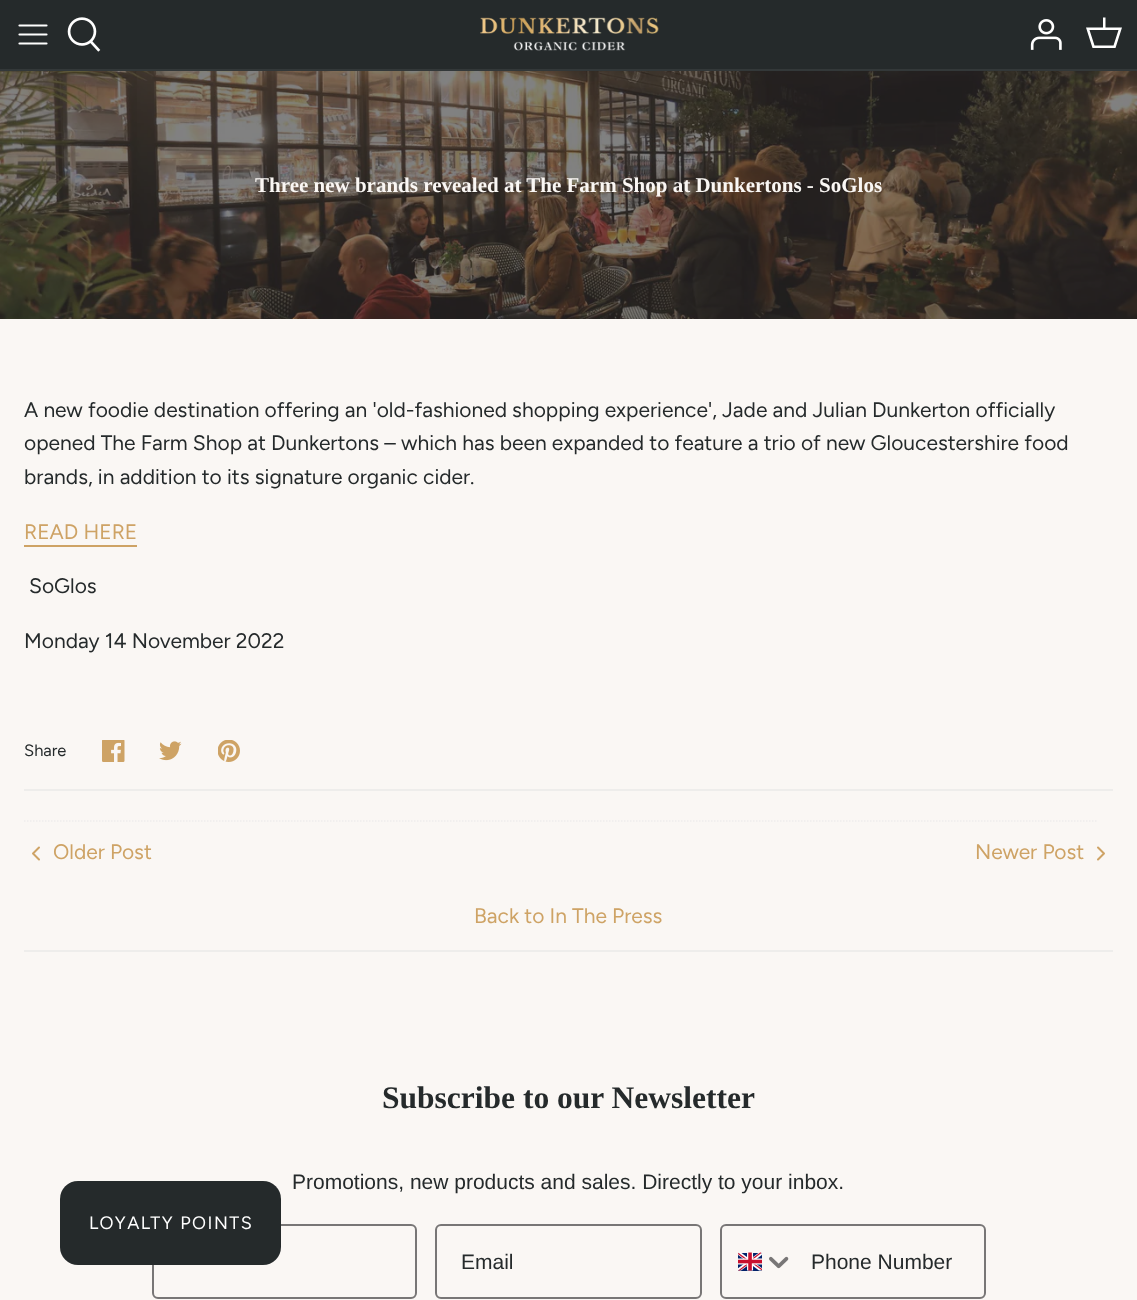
<!DOCTYPE html>
<meta charset="utf-8">
<style>body { margin: 0 } canvas { display: block }</style>
<canvas id="canvas" width="1137" height="1300"></canvas>
<img id="img1" src="img_01.png" hidden>
<img id="img2" src="img_02.png" hidden>
<img id="img3" src="img_03.png" hidden>
<img id="img4" src="img_04.png" hidden>
<img id="img5" src="img_05.png" hidden>
<img id="img6" src="img_06.png" hidden>
<img id="img7" src="img_07.png" hidden>
<img id="img8" src="img_08.png" hidden>
<img id="img9" src="img_09.png" hidden>
<script>
window.onload = function () {
	const canvas = document.getElementById("canvas");
	const ctx = canvas.getContext("2d");
	ctx.miterLimit = 4;
	ctx.fontKerning = "normal";
	function txt(s, x, y) {
		ctx.fillText(s, x, y);
	}
	function fill(x, y, w, h) {
		ctx.fillRect(x, y, w, h);
	}
	function round(x, y, w, h, r) {
		ctx.beginPath();
		ctx.roundRect(x, y, w, h, r);
		ctx.fill();
	}
	function img(id, x, y, w, h) {
		ctx.drawImage(document.getElementById(id), x, y, w, h);
	}

	ctx.fillStyle = "#FAF7F4";
	fill(0, 0, 1137, 1300);
	ctx.fillStyle = "#252A2B";
	fill(0, 0, 1137, 69);
	ctx.fillStyle = "#333839";
	fill(0, 69, 1137, 2);
	ctx.beginPath();
	ctx.moveTo(19.5, 34.5);
	ctx.lineTo(46.5, 34.5);
	ctx.moveTo(19.5, 25.5);
	ctx.lineTo(46.5, 25.5);
	ctx.moveTo(19.5, 43.5);
	ctx.lineTo(46.5, 43.5);
	ctx.strokeStyle = "#FFFFFF";
	ctx.lineWidth = 2.2;
	ctx.lineCap = "round";
	ctx.lineJoin = "round";
	ctx.stroke();
	img("img1", 67, 17, 34, 35);
	img("img2", 480, 17, 179, 34);
	img("img3", 1030, 19, 32, 31);
	ctx.fillStyle = "#FFFFFF";
	ctx.beginPath();
	ctx.moveTo(1103, 27.5);
	ctx.lineTo(1103, 17.5);
	ctx.lineTo(1105.5, 17.5);
	ctx.lineTo(1105.5, 27.5);
	ctx.lineTo(1122, 27.5);
	ctx.lineTo(1115.5, 48);
	ctx.lineTo(1092.5, 48);
	ctx.lineTo(1086, 27.5);
	ctx.closePath();
	ctx.moveTo(1089.5, 30);
	ctx.lineTo(1094.5, 45.5);
	ctx.lineTo(1113.5, 45.5);
	ctx.lineTo(1118.5, 30);
	ctx.closePath();
	ctx.fill();
	img("img4", 0, 71, 1137, 248);
	ctx.fillStyle = "#CEA365";
	fill(24, 545, 113, 2);
	img("img5", 102, 740, 23, 22);
	img("img6", 159, 741, 23, 20);
	img("img7", 218, 740, 22, 22);
	ctx.fillStyle = "#EEEDEB";
	fill(24, 789, 1089, 2);
	ctx.beginPath();
	ctx.moveTo(24, 821);
	ctx.lineTo(1098, 821);
	ctx.strokeStyle = "#EEEDEB";
	ctx.lineWidth = 1.5;
	ctx.lineCap = "butt";
	ctx.lineJoin = "miter";
	ctx.setLineDash([1.5, 1.5]);
	ctx.stroke();
	fill(24, 950, 1089, 2);
	ctx.beginPath();
	ctx.moveTo(39, 859.5);
	ctx.lineTo(33, 853.5);
	ctx.lineTo(39, 847.5);
	ctx.strokeStyle = "#CEA365";
	ctx.lineWidth = 2;
	ctx.lineCap = "round";
	ctx.lineJoin = "round";
	ctx.setLineDash([]);
	ctx.stroke();
	ctx.beginPath();
	ctx.moveTo(1098, 859.5);
	ctx.lineTo(1104, 853.5);
	ctx.lineTo(1098, 847.5);
	ctx.stroke();
	ctx.beginPath();
	ctx.roundRect(153, 1225, 263, 73, 5);
	ctx.strokeStyle = "#787676";
	ctx.lineJoin = "miter";
	ctx.stroke();
	ctx.fillStyle = "#252A2B";
	round(60, 1181, 221, 84, 18);
	ctx.beginPath();
	ctx.roundRect(436, 1225, 265, 73, 5);
	ctx.stroke();
	ctx.beginPath();
	ctx.roundRect(721, 1225, 264, 73, 5);
	ctx.stroke();
	img("img8", 738, 1252, 24, 19);
	img("img9", 769, 1256, 20, 13);
	ctx.font = "bold 21px Liberation Serif";
	ctx.fillStyle = "#FAF7F4";
	txt("Three new brands revealed at The Farm Shop at Dunkertons - SoGlos", 255, 192);
	ctx.font = "21px Figtree";
	ctx.fillStyle = "#252A2B";
	txt("A new foodie destination offering an 'old-fashioned shopping experience', Jade and Julian Dunkerton officially", 24, 417);
	txt("opened The Farm Shop at Dunkertons – which has been expanded to feature a trio of new Gloucestershire food", 24, 450);
	txt("brands, in addition to its signature organic cider.", 24, 484);
	ctx.fillStyle = "#CEA365";
	txt("READ HERE", 24, 539);
	ctx.fillStyle = "#252A2B";
	txt("SoGlos", 29, 593);
	txt("Monday 14 November 2022", 24, 648);
	ctx.font = "16.5px Figtree";
	txt("Share", 24, 756);
	ctx.font = "21px Figtree";
	ctx.fillStyle = "#CEA365";
	txt("Older Post", 53, 859);
	txt("Newer Post", 975, 859);
	txt("Back to In The Press", 474, 923);
	ctx.letterSpacing = "1.5px";
	ctx.font = "18px Figtree";
	ctx.fillStyle = "#FFFFFF";
	txt("LOYALTY POINTS", 89, 1229);
	ctx.letterSpacing = "0px";
	ctx.font = "bold 31.5px Liberation Serif";
	ctx.fillStyle = "#252A2B";
	txt("Subscribe to our Newsletter", 382, 1108);
	ctx.font = "21px Liberation Sans";
	txt("Promotions, new products and sales. Directly to your inbox.", 292, 1189);
	txt("Email", 461, 1269);
	txt("Phone Number", 811, 1269);
};
</script>
